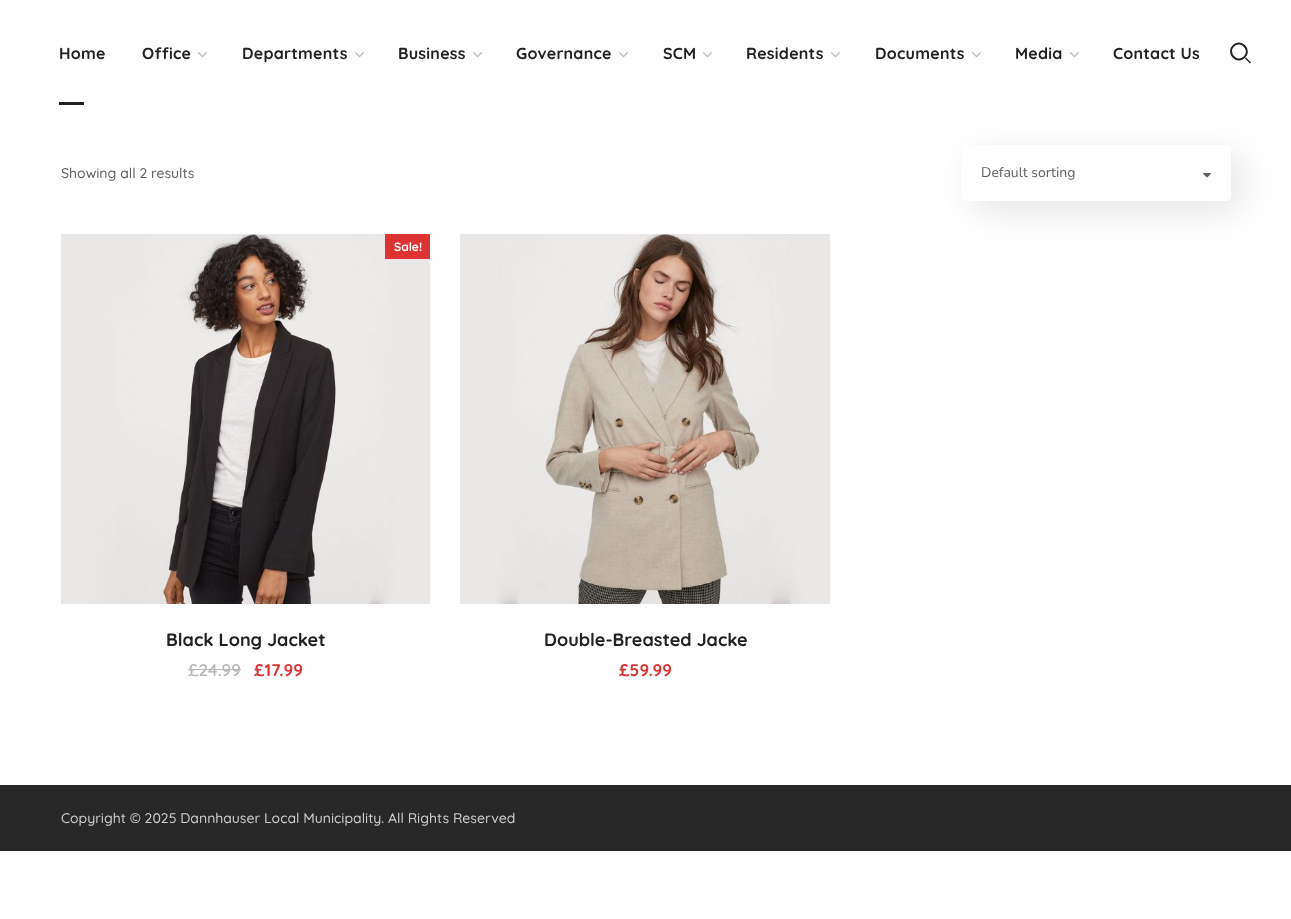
<!DOCTYPE html>
<meta charset="utf-8">
<style>body { margin: 0 } canvas { display: block }</style>
<canvas id="canvas" width="1291" height="919"></canvas>
<img id="img1" src="img_01.png" hidden>
<img id="img2" src="img_02.png" hidden>
<img id="img3" src="img_03.png" hidden>
<img id="img4" src="img_04.png" hidden>
<script>
window.onload = function () {
	const canvas = document.getElementById("canvas");
	const ctx = canvas.getContext("2d");
	ctx.miterLimit = 4;
	ctx.fontKerning = "normal";
	function txt(s, x, y) {
		ctx.fillText(s, x, y);
	}
	function fill(x, y, w, h) {
		ctx.fillRect(x, y, w, h);
	}
	function round(x, y, w, h, r) {
		ctx.beginPath();
		ctx.roundRect(x, y, w, h, r);
		ctx.fill();
	}
	function img(id, x, y, w, h) {
		ctx.drawImage(document.getElementById(id), x, y, w, h);
	}

	ctx.fillStyle = "#FFFFFF";
	fill(0, 0, 1291, 919);
	img("img1", 198, 52, 9, 6);
	img("img1", 355, 52, 9, 6);
	img("img1", 473, 52, 9, 6);
	img("img1", 619, 52, 9, 6);
	img("img1", 703, 52, 9, 6);
	img("img1", 831, 52, 9, 6);
	img("img1", 972, 52, 9, 6);
	img("img1", 1070, 52, 9, 6);
	ctx.fillStyle = "#212121";
	fill(59, 102, 25, 3);
	ctx.beginPath();
	ctx.moveTo(1244.5, 46);
	ctx.bezierCurveTo(1252, 53.5, 1240.5, 64.5, 1233.5, 57);
	ctx.bezierCurveTo(1226, 49.5, 1237, 38.5, 1244.5, 46);
	ctx.closePath();
	ctx.strokeStyle = "#212121";
	ctx.lineWidth = 2;
	ctx.stroke();
	ctx.beginPath();
	ctx.moveTo(1245, 58.5);
	ctx.lineTo(1246, 57.5);
	ctx.lineTo(1251, 62.5);
	ctx.lineTo(1250, 63.5);
	ctx.closePath();
	ctx.fill();
	ctx.fillStyle = "rgba(0, 0, 0, 0.1)";
	ctx.filter = "blur(19px)";
	ctx.beginPath();
	ctx.roundRect(972, 155, 270, 56, 5);
	ctx.fill();
	ctx.filter = "none";
	ctx.fillStyle = "#FFFFFF";
	round(961, 145, 270, 56, 5);
	img("img2", 1203, 173, 8, 5);
	img("img3", 61, 234, 369, 370);
	ctx.fillStyle = "#DD3333";
	fill(385, 234, 45, 25);
	ctx.fillStyle = "#B7B7B7";
	fill(188, 669, 53, 1);
	img("img4", 460, 234, 370, 370);
	ctx.fillStyle = "#282828";
	fill(0, 785, 1291, 66);
	ctx.letterSpacing = "0.25px";
	ctx.font = "bold 16px Quicksand";
	ctx.fillStyle = "#212121";
	txt("Home", 59, 59);
	txt("Office", 142, 59);
	txt("Departments", 242, 59);
	txt("Business", 398, 59);
	txt("Governance", 516, 59);
	txt("SCM", 663, 59);
	txt("Residents", 746, 59);
	txt("Documents", 875, 59);
	txt("Media", 1015, 59);
	txt("Contact Us", 1113, 59);
	ctx.letterSpacing = "0px";
	ctx.font = "500 14px Quicksand";
	ctx.fillStyle = "#616161";
	txt("Showing all 2 results", 61, 178);
	ctx.font = "14px Nunito Sans";
	txt("Default sorting", 981, 177);
	ctx.font = "bold 12px Quicksand";
	ctx.fillStyle = "#FFFFFF";
	txt("Sale!", 394, 251);
	ctx.font = "bold 18px Quicksand";
	ctx.fillStyle = "#212121";
	txt("Black Long Jacket", 166, 646);
	ctx.font = "600 17px Quicksand";
	ctx.fillStyle = "#B7B7B7";
	txt("£24.99", 188, 676);
	ctx.font = "bold 17px Quicksand";
	ctx.fillStyle = "#DD3333";
	txt("£17.99", 254, 676);
	ctx.font = "bold 18px Quicksand";
	ctx.fillStyle = "#212121";
	txt("Double-Breasted Jacke", 544, 646);
	ctx.font = "bold 17px Quicksand";
	ctx.fillStyle = "#DD3333";
	txt("£59.99", 619, 676);
	ctx.font = "500 14px Quicksand";
	ctx.fillStyle = "#CCCCCC";
	txt("Copyright © 2025 Dannhauser Local Municipality. All Rights Reserved", 61, 823);
};
</script>
